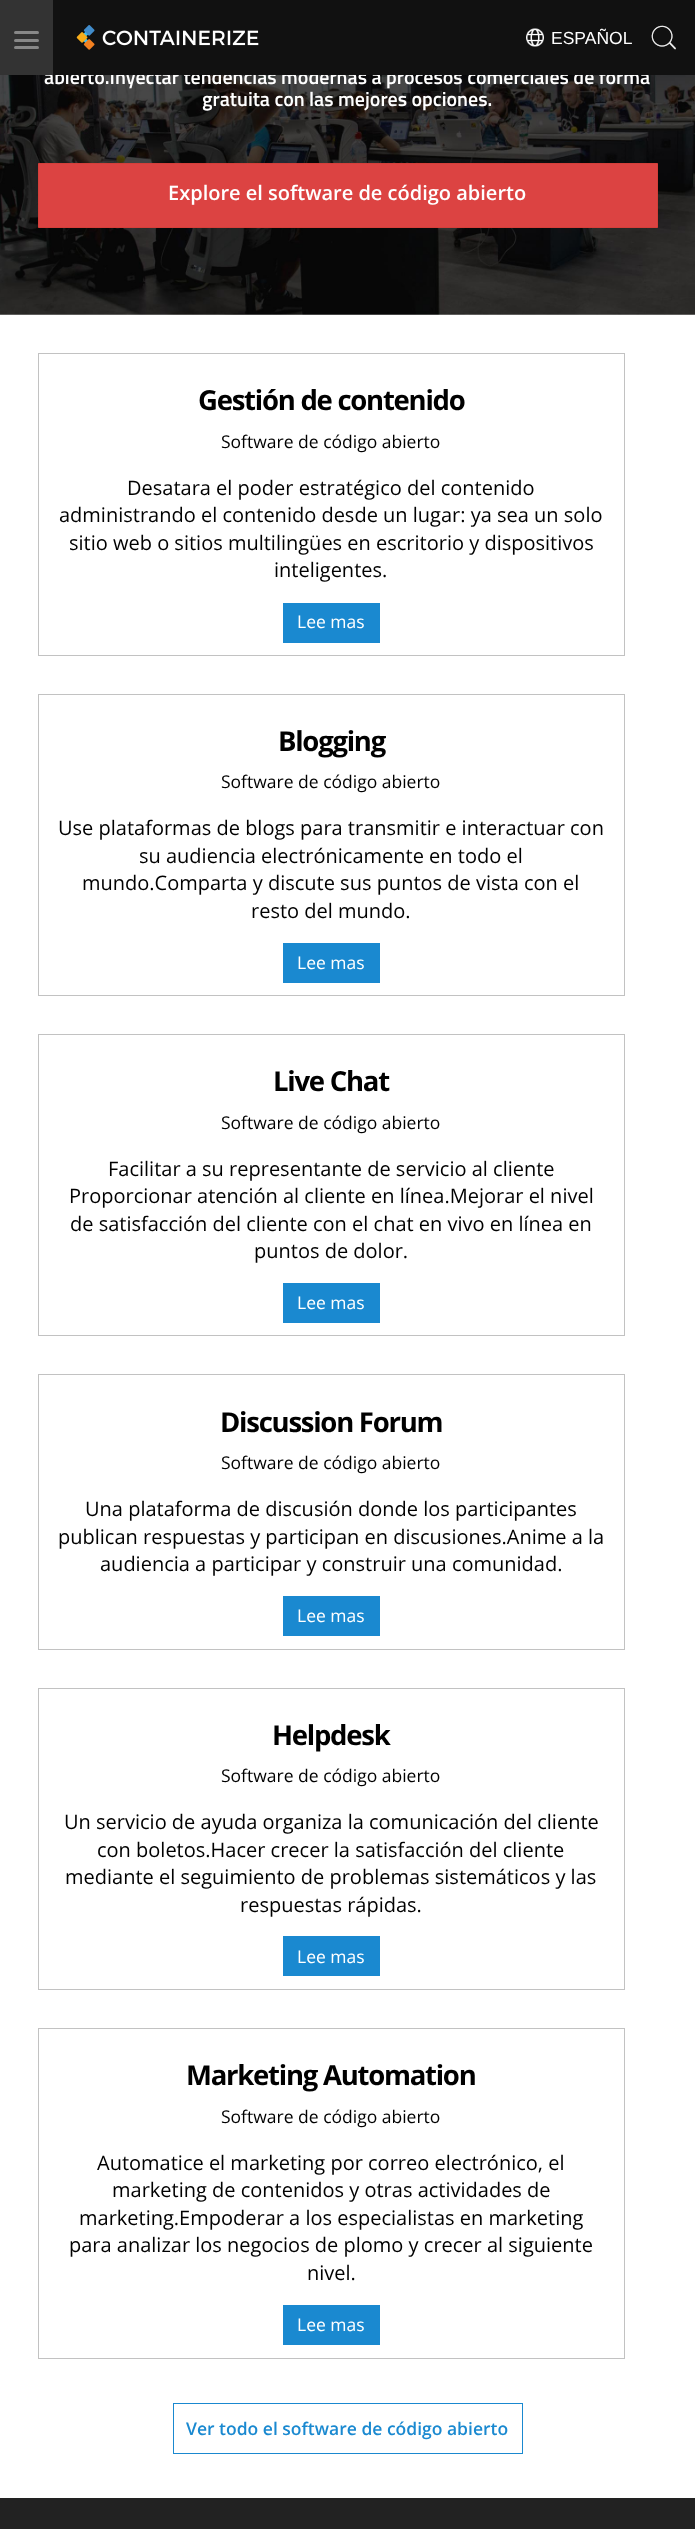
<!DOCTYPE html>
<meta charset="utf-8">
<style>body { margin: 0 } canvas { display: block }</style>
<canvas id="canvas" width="695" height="2529"></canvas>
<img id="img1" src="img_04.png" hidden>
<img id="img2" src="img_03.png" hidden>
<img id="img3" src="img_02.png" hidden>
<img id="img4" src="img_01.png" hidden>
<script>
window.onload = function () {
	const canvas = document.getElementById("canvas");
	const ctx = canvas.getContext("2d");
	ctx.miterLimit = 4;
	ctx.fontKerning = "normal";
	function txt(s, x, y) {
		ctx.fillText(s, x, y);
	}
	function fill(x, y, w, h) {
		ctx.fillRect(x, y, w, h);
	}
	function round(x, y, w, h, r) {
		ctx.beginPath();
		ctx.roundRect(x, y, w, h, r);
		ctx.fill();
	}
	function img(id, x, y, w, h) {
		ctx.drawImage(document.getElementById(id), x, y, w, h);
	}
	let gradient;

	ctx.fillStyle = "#FFFFFF";
	fill(0, 0, 695, 2529);
	img("img1", 0, 75, 695, 240);
	ctx.fillStyle = "#DC4342";
	ctx.beginPath();
	ctx.rect(38.5, 163.5, 619, 64);
	ctx.fill();
	ctx.strokeStyle = "#D43F3A";
	ctx.stroke();
	ctx.strokeStyle = "#C2C2C2";
	ctx.strokeRect(38.5, 353.5, 586, 302);
	ctx.fillStyle = "#1A89D0";
	fill(283, 603, 97, 40);
	ctx.strokeRect(38.5, 694.5, 586, 301);
	fill(283, 943, 97, 40);
	ctx.strokeRect(38.5, 1034.5, 586, 301);
	fill(283, 1283, 97, 40);
	ctx.strokeRect(38.5, 1374.5, 586, 275);
	fill(283, 1596, 97, 40);
	ctx.strokeRect(38.5, 1688.5, 586, 301);
	fill(283, 1936, 97, 40);
	ctx.strokeRect(38.5, 2028.5, 586, 330);
	fill(283, 2305, 97, 40);
	ctx.strokeStyle = "#1A89D0";
	ctx.strokeRect(173.5, 2403.5, 349, 50);
	gradient = ctx.createLinearGradient(348, 2498, 348, 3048);
	gradient.addColorStop(0.3, "#222222");
	gradient.addColorStop(1, "#444444");
	ctx.fillStyle = gradient;
	fill(0, 2498, 695, 31);
	ctx.font = "600 20px Titillium Web";
	ctx.fillStyle = "#FFFFFF";
	txt("abierto.Inyectar tendencias modernas a procesos comerciales de forma", 44, 84);
	ctx.fillStyle = "#111111";
	fill(53, 0, 642, 75);
	img("img2", 651, 25, 25, 25);
	ctx.font = "17.5px Liberation Sans";
	ctx.fillStyle = "#FFFFFF";
	txt("ESPAÑOL", 551, 44);
	img("img3", 526, 28, 18, 19);
	ctx.fillStyle = "#333333";
	fill(0, 0, 53, 75);
	ctx.fillStyle = "#888888";
	round(14, 46, 25, 3, 1.5);
	round(14, 39, 25, 3, 1.5);
	round(14, 31, 25, 3, 1.5);
	img("img4", 76, 25, 183, 25);
	ctx.font = "600 20px Titillium Web";
	ctx.fillStyle = "#FFFFFF";
	txt("gratuita con las mejores opciones.", 202, 106);
	ctx.font = "600 20px Open Sans";
	txt("Explore el software de código abierto", 168, 200);
	ctx.letterSpacing = "-1.25px";
	ctx.font = "bold 27.5px Open Sans";
	ctx.fillStyle = "#000000";
	txt("Gestión de contenido", 198, 410);
	ctx.letterSpacing = "0px";
	ctx.font = "17.5px Open Sans";
	txt("Software de código abierto", 221, 448);
	ctx.font = "20px Open Sans";
	txt("Desatara el poder estratégico del contenido", 127, 495);
	txt("administrando el contenido desde un lugar: ya sea un solo", 59, 522);
	txt("sitio web o sitios multilingües en escritorio y dispositivos", 69, 550);
	txt("inteligentes.", 274, 577);
	ctx.font = "17.5px Open Sans";
	ctx.fillStyle = "#FFFFFF";
	txt("Lee mas", 297, 628);
	ctx.letterSpacing = "-1.25px";
	ctx.font = "bold 27.5px Open Sans";
	ctx.fillStyle = "#000000";
	txt("Blogging", 278, 751);
	ctx.letterSpacing = "0px";
	ctx.font = "17.5px Open Sans";
	txt("Software de código abierto", 221, 788);
	ctx.font = "20px Open Sans";
	txt("Use plataformas de blogs para transmitir e interactuar con", 58, 835);
	txt("su audiencia electrónicamente en todo el", 139, 863);
	txt("mundo.Comparta y discute sus puntos de vista con el", 82, 890);
	txt("resto del mundo.", 251, 918);
	ctx.font = "17.5px Open Sans";
	ctx.fillStyle = "#FFFFFF";
	txt("Lee mas", 297, 969);
	ctx.letterSpacing = "-1.25px";
	ctx.font = "bold 27.5px Open Sans";
	ctx.fillStyle = "#000000";
	txt("Live Chat", 273, 1091);
	ctx.letterSpacing = "0px";
	ctx.font = "17.5px Open Sans";
	txt("Software de código abierto", 221, 1129);
	ctx.font = "20px Open Sans";
	txt("Facilitar a su representante de servicio al cliente", 108, 1176);
	txt("Proporcionar atención al cliente en línea.Mejorar el nivel", 69, 1203);
	txt("de satisfacción del cliente con el chat en vivo en línea en", 70, 1231);
	txt("puntos de dolor.", 254, 1258);
	ctx.font = "17.5px Open Sans";
	ctx.fillStyle = "#FFFFFF";
	txt("Lee mas", 297, 1309);
	ctx.letterSpacing = "-1.25px";
	ctx.font = "bold 27.5px Open Sans";
	ctx.fillStyle = "#000000";
	txt("Discussion Forum", 220, 1432);
	ctx.letterSpacing = "0px";
	ctx.font = "17.5px Open Sans";
	txt("Software de código abierto", 221, 1469);
	ctx.font = "20px Open Sans";
	txt("Una plataforma de discusión donde los participantes", 85, 1516);
	txt("publican respuestas y participan en discusiones.Anime a la", 58, 1544);
	txt("audiencia a participar y construir una comunidad.", 100, 1571);
	ctx.font = "17.5px Open Sans";
	ctx.fillStyle = "#FFFFFF";
	txt("Lee mas", 297, 1622);
	ctx.letterSpacing = "-1.25px";
	ctx.font = "bold 27.5px Open Sans";
	ctx.fillStyle = "#000000";
	txt("Helpdesk", 272, 1745);
	ctx.letterSpacing = "0px";
	ctx.font = "17.5px Open Sans";
	txt("Software de código abierto", 221, 1782);
	ctx.font = "20px Open Sans";
	txt("Un servicio de ayuda organiza la comunicación del cliente", 64, 1829);
	txt("con boletos.Hacer crecer la satisfacción del cliente", 97, 1857);
	txt("mediante el seguimiento de problemas sistemáticos y las", 65, 1884);
	txt("respuestas rápidas.", 240, 1912);
	ctx.font = "17.5px Open Sans";
	ctx.fillStyle = "#FFFFFF";
	txt("Lee mas", 297, 1963);
	ctx.letterSpacing = "-1.25px";
	ctx.font = "bold 27.5px Open Sans";
	ctx.fillStyle = "#000000";
	txt("Marketing Automation", 186, 2085);
	ctx.letterSpacing = "0px";
	ctx.font = "17.5px Open Sans";
	txt("Software de código abierto", 221, 2123);
	ctx.font = "20px Open Sans";
	txt("Automatice el marketing por correo electrónico, el", 97, 2170);
	txt("marketing de contenidos y otras actividades de", 112, 2197);
	txt("marketing.Empoderar a los especialistas en marketing", 79, 2225);
	txt("para analizar los negocios de plomo y crecer al siguiente", 69, 2252);
	txt("nivel.", 307, 2280);
	ctx.font = "17.5px Open Sans";
	ctx.fillStyle = "#FFFFFF";
	txt("Lee mas", 297, 2331);
	ctx.font = "600 17.5px Open Sans";
	ctx.fillStyle = "#1A89D0";
	txt("Ver todo el software de código abierto", 186, 2435);
};
</script>
